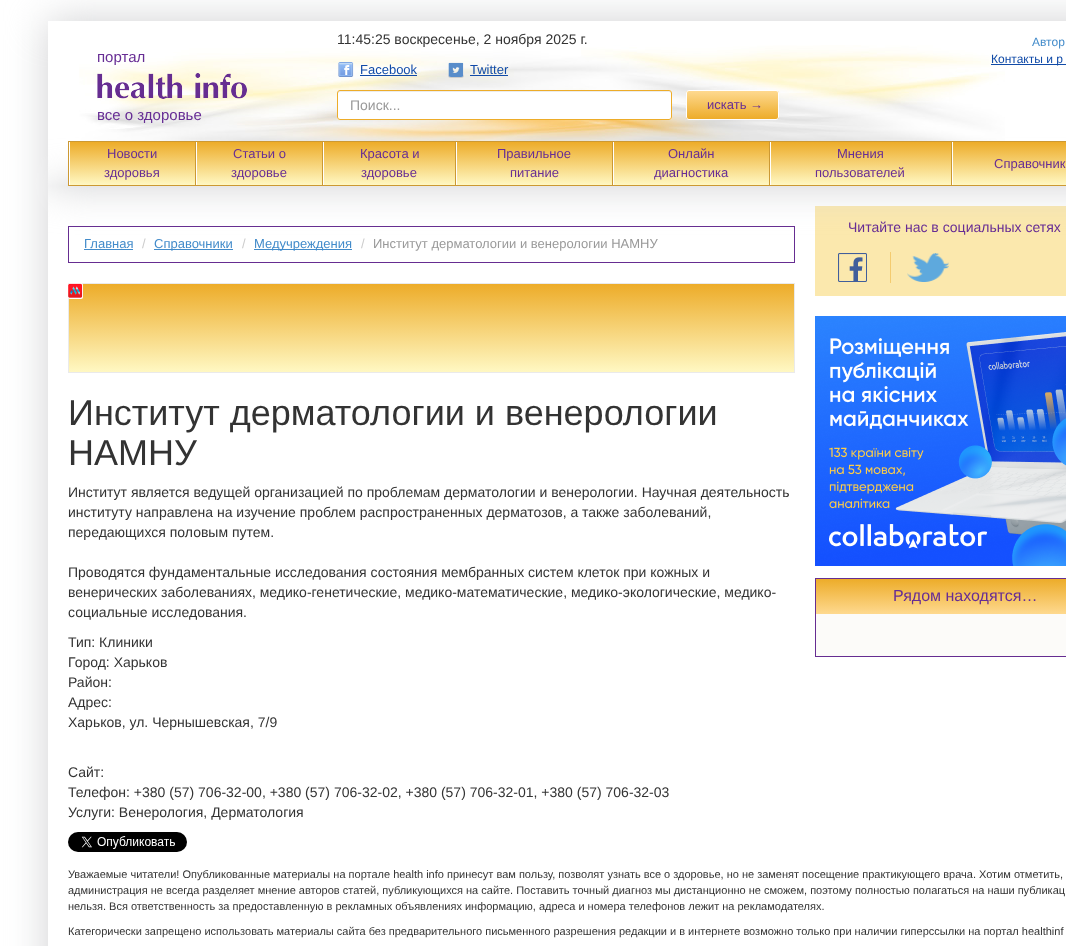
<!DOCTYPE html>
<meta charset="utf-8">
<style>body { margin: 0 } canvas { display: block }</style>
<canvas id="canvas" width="1066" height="946"></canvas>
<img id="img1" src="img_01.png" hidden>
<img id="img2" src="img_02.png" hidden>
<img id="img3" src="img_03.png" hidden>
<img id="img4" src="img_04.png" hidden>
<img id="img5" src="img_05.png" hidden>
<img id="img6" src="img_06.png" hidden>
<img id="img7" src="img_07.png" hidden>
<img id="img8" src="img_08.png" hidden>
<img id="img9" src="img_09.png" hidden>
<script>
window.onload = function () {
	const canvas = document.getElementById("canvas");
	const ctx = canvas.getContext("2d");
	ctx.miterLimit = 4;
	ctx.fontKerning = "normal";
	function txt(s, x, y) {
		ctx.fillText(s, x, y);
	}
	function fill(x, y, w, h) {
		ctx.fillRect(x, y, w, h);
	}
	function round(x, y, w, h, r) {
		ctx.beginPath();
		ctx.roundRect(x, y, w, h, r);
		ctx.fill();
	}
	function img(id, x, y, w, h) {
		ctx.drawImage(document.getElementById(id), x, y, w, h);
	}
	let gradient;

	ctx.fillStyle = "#FFFFFF";
	fill(0, 0, 1066, 946);
	ctx.save();
	ctx.beginPath();
	ctx.moveTo(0, 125);
	ctx.lineTo(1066, 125);
	ctx.lineTo(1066, 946);
	ctx.lineTo(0, 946);
	ctx.closePath();
	ctx.moveTo(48, 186);
	ctx.lineTo(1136, 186);
	ctx.lineTo(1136, 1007);
	ctx.lineTo(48, 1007);
	ctx.closePath();
	ctx.clip("evenodd");
	ctx.fillStyle = "#D0D1D3";
	ctx.filter = "blur(20px)";
	ctx.beginPath();
	ctx.rect(48, 186, 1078, 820);
	ctx.fill();
	ctx.filter = "none";
	ctx.restore();
	ctx.strokeStyle = "#662D91";
	ctx.strokeRect(68.5, 226.5, 726, 36);
	ctx.fillStyle = "#FBE8AD";
	fill(815, 206, 251, 90);
	ctx.save();
	ctx.beginPath();
	ctx.moveTo(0, 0);
	ctx.lineTo(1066, 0);
	ctx.lineTo(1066, 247);
	ctx.lineTo(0, 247);
	ctx.closePath();
	ctx.moveTo(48, 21);
	ctx.lineTo(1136, 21);
	ctx.lineTo(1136, 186);
	ctx.lineTo(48, 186);
	ctx.closePath();
	ctx.clip("evenodd");
	ctx.fillStyle = "#D0D1D3";
	ctx.filter = "blur(20px)";
	ctx.beginPath();
	ctx.rect(48, 21, 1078, 165);
	ctx.fill();
	ctx.filter = "none";
	ctx.restore();
	img("img1", 79, 45, 926, 96);
	img("img2", 97, 73, 150, 26);
	img("img3", 338, 62, 16, 15);
	ctx.fillStyle = "#114BA8";
	fill(360, 75, 57, 1);
	ctx.save();
	ctx.beginPath();
	ctx.moveTo(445, 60);
	ctx.lineTo(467, 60);
	ctx.lineTo(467, 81);
	ctx.lineTo(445, 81);
	ctx.closePath();
	ctx.moveTo(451, 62);
	ctx.lineTo(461, 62);
	ctx.bezierCurveTo(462.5, 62, 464, 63.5, 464, 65);
	ctx.lineTo(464, 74);
	ctx.bezierCurveTo(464, 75.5, 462.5, 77, 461, 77);
	ctx.lineTo(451, 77);
	ctx.bezierCurveTo(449.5, 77, 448, 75.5, 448, 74);
	ctx.lineTo(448, 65);
	ctx.bezierCurveTo(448, 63.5, 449.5, 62, 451, 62);
	ctx.closePath();
	ctx.clip("evenodd");
	ctx.fillStyle = "#CCCCCC";
	ctx.filter = "blur(0.5px)";
	ctx.beginPath();
	ctx.roundRect(448, 63, 16, 15, 3);
	ctx.fill();
	ctx.filter = "none";
	ctx.restore();
	img("img4", 448, 62, 16, 15);
	fill(470, 75, 38, 1);
	ctx.fillStyle = "#FFFFFF";
	round(337, 90, 335, 30, 3);
	ctx.fillStyle = "#ECECEC";
	ctx.beginPath();
	ctx.moveTo(340, 92);
	ctx.lineTo(669, 92);
	ctx.bezierCurveTo(670, 92, 671, 93, 671, 94);
	ctx.bezierCurveTo(671, 93, 671, 91, 669, 91);
	ctx.lineTo(340, 91);
	ctx.lineTo(338, 92);
	ctx.lineTo(338, 94);
	ctx.bezierCurveTo(338, 93, 339, 92, 340, 92);
	ctx.closePath();
	ctx.fill();
	ctx.beginPath();
	ctx.roundRect(337.5, 90.5, 334, 29, 2.5);
	ctx.strokeStyle = "#EDAC29";
	ctx.stroke();
	ctx.save();
	ctx.beginPath();
	ctx.roundRect(686, 90, 93, 30, 3);
	ctx.clip();
	gradient = ctx.createLinearGradient(733, 119, 733, 91);
	gradient.addColorStop(0, "#EDAC29");
	gradient.addColorStop(1, "#FED98F");
	ctx.fillStyle = gradient;
	fill(686, 91, 93, 28);
	ctx.restore();
	ctx.beginPath();
	ctx.roundRect(686.5, 90.5, 92, 29, 2.5);
	ctx.strokeStyle = "#FFFFFF";
	ctx.stroke();
	ctx.fillStyle = "#114BA8";
	fill(991, 64, 75, 1);
	gradient = ctx.createLinearGradient(592, 142, 592, 185);
	gradient.addColorStop(0, "#EDAC29");
	gradient.addColorStop(1, "#FFF8C3");
	ctx.fillStyle = gradient;
	fill(70, 142, 996, 43);
	ctx.fillStyle = "#CC9933";
	fill(68, 141, 998, 1);
	fill(68, 185, 998, 1);
	fill(68, 141, 1, 45);
	fill(195, 141, 1, 45);
	ctx.fillStyle = "#FFFFFF";
	fill(69, 156, 1, 29);
	ctx.fillStyle = "#CC9933";
	fill(322, 141, 1, 45);
	ctx.fillStyle = "#FFFFFF";
	fill(196, 142, 1, 43);
	ctx.fillStyle = "#CC9933";
	fill(455, 141, 1, 45);
	ctx.fillStyle = "#FFFFFF";
	fill(323, 142, 1, 43);
	ctx.fillStyle = "#CC9933";
	fill(612, 141, 1, 45);
	ctx.fillStyle = "#FFFFFF";
	fill(456, 142, 1, 43);
	ctx.fillStyle = "#CC9933";
	fill(769, 141, 1, 45);
	ctx.fillStyle = "#FFFFFF";
	fill(613, 142, 1, 43);
	ctx.fillStyle = "#CC9933";
	fill(951, 141, 1, 45);
	ctx.fillStyle = "#FFFFFF";
	fill(770, 142, 1, 43);
	fill(952, 142, 1, 43);
	ctx.fillStyle = "#428BCA";
	fill(84, 249, 49, 1);
	fill(154, 249, 79, 1);
	fill(254, 249, 98, 1);
	gradient = ctx.createLinearGradient(432, 284, 432, 372);
	gradient.addColorStop(0, "#EDAC29");
	gradient.addColorStop(1, "#FFF8C3");
	ctx.fillStyle = gradient;
	fill(69, 284, 725, 88);
	ctx.fillStyle = "#EAEAEA";
	fill(68, 283, 727, 1);
	fill(794, 283, 1, 90);
	fill(68, 372, 727, 1);
	fill(68, 283, 1, 90);
	ctx.fillStyle = "#FFFFFF";
	round(68, 283, 15, 16, 2);
	img("img5", 68, 283, 15, 15);
	img("img6", 68, 832, 119, 20);
	img("img7", 838, 253, 29, 29);
	ctx.fillStyle = "#F4CB6F";
	fill(890, 252, 1, 31);
	img("img8", 907, 253, 42, 29);
	img("img9", 815, 316, 251, 250);
	ctx.fillStyle = "#FCFBF9";
	fill(816, 614, 250, 42);
	ctx.strokeStyle = "#662D91";
	ctx.strokeRect(815.5, 578.5, 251, 78);
	gradient = ctx.createLinearGradient(965, 579, 965, 614);
	gradient.addColorStop(0, "#EDAC29");
	gradient.addColorStop(1, "#FED98F");
	ctx.fillStyle = gradient;
	fill(816, 579, 250, 35);
	ctx.font = "15px Liberation Sans";
	ctx.fillStyle = "#672D94";
	txt("портал", 97, 62);
	txt("все о здоровье", 97, 120);
	ctx.font = "14px Liberation Sans";
	ctx.fillStyle = "#333333";
	txt("11:45:25 воскресенье, 2 ноября 2025 г.", 337, 44);
	ctx.font = "13px Liberation Sans";
	ctx.fillStyle = "#114BA8";
	txt("Facebook", 360, 74);
	txt("Twitter", 470, 74);
	ctx.font = "14px Liberation Sans";
	ctx.fillStyle = "#999999";
	txt("Поиск...", 350, 110);
	ctx.font = "13px Liberation Sans";
	ctx.fillStyle = "#672D94";
	txt("искать →", 707, 109);
	ctx.font = "12px Liberation Sans";
	ctx.fillStyle = "#428BCA";
	txt("Автор", 1032, 46);
	ctx.fillStyle = "#114BA8";
	txt("Контакты и р", 991, 63);
	ctx.font = "13px Liberation Sans";
	ctx.fillStyle = "#672D94";
	txt("Новости", 107, 158);
	txt("здоровья", 104, 177);
	txt("Статьи о", 233, 158);
	txt("здоровье", 231, 177);
	txt("Красота и", 360, 158);
	txt("здоровье", 361, 177);
	txt("Правильное", 497, 158);
	txt("питание", 510, 177);
	txt("Онлайн", 668, 158);
	txt("диагностика", 654, 177);
	txt("Мнения", 837, 158);
	txt("пользователей", 815, 177);
	txt("Справочник", 994, 168);
	ctx.fillStyle = "#428BCA";
	txt("Главная", 84, 248);
	ctx.fillStyle = "#CCCCCC";
	txt("/", 142, 248);
	ctx.fillStyle = "#428BCA";
	txt("Справочники", 154, 248);
	ctx.fillStyle = "#CCCCCC";
	txt("/", 242, 248);
	ctx.fillStyle = "#428BCA";
	txt("Медучреждения", 254, 248);
	ctx.fillStyle = "#CCCCCC";
	txt("/", 361, 248);
	ctx.fillStyle = "#999999";
	txt("Институт дерматологии и венерологии НАМНУ", 373, 248);
	ctx.font = "36px Liberation Sans";
	ctx.fillStyle = "#333333";
	txt("Институт дерматологии и венерологии", 68, 425);
	txt("НАМНУ", 68, 465);
	ctx.font = "14px Liberation Sans";
	txt("Институт является ведущей организацией по проблемам дерматологии и венерологии. Научная деятельность", 68, 497);
	txt("институту направлена на изучение проблем распространенных дерматозов, а также заболеваний,", 68, 517);
	txt("передающихся половым путем.", 68, 537);
	txt("Проводятся фундаментальные исследования состояния мембранных систем клеток при кожных и", 68, 577);
	txt("венерических заболеваниях, медико-генетические, медико-математические, медико-экологические, медико-", 68, 597);
	txt("социальные исследования.", 68, 617);
	txt("Тип: Клиники", 68, 647);
	txt("Город: Харьков", 68, 667);
	txt("Район:", 68, 687);
	txt("Адрес:", 68, 707);
	txt("Харьков, ул. Чернышевская, 7/9", 68, 727);
	txt("Сайт:", 68, 777);
	txt("Телефон: +380 (57) 706-32-00, +380 (57) 706-32-02, +380 (57) 706-32-01, +380 (57) 706-32-03", 68, 797);
	txt("Услуги: Венерология, Дерматология", 68, 817);
	ctx.fillStyle = "#672D94";
	txt("Читайте нас в социальных сетях", 848, 232);
	ctx.font = "16px Liberation Sans";
	txt("Рядом находятся…", 893, 601);
	ctx.font = "11px Liberation Sans";
	ctx.fillStyle = "#333333";
	txt("Уважаемые читатели! Опубликованные материалы на портале health info принесут вам пользу, позволят узнать все о здоровье, но не заменят посещение практикующего врача. Хотим отметить,", 68, 878);
	txt("администрация не всегда разделяет мнение авторов статей, публикующихся на сайте. Поставить точный диагноз мы дистанционно не сможем, поэтому полностью полагаться на наши публикац", 68, 894);
	txt("нельзя. Вся ответственность за предоставленную в рекламных объявлениях информацию, адреса и номера телефонов лежит на рекламодателях.", 68, 910);
	txt("Категорически запрещено использовать материалы сайта без предварительного письменного разрешения редакции и в интернете возможно только при наличии гиперссылки на портал healthinf", 68, 935);
};
</script>
